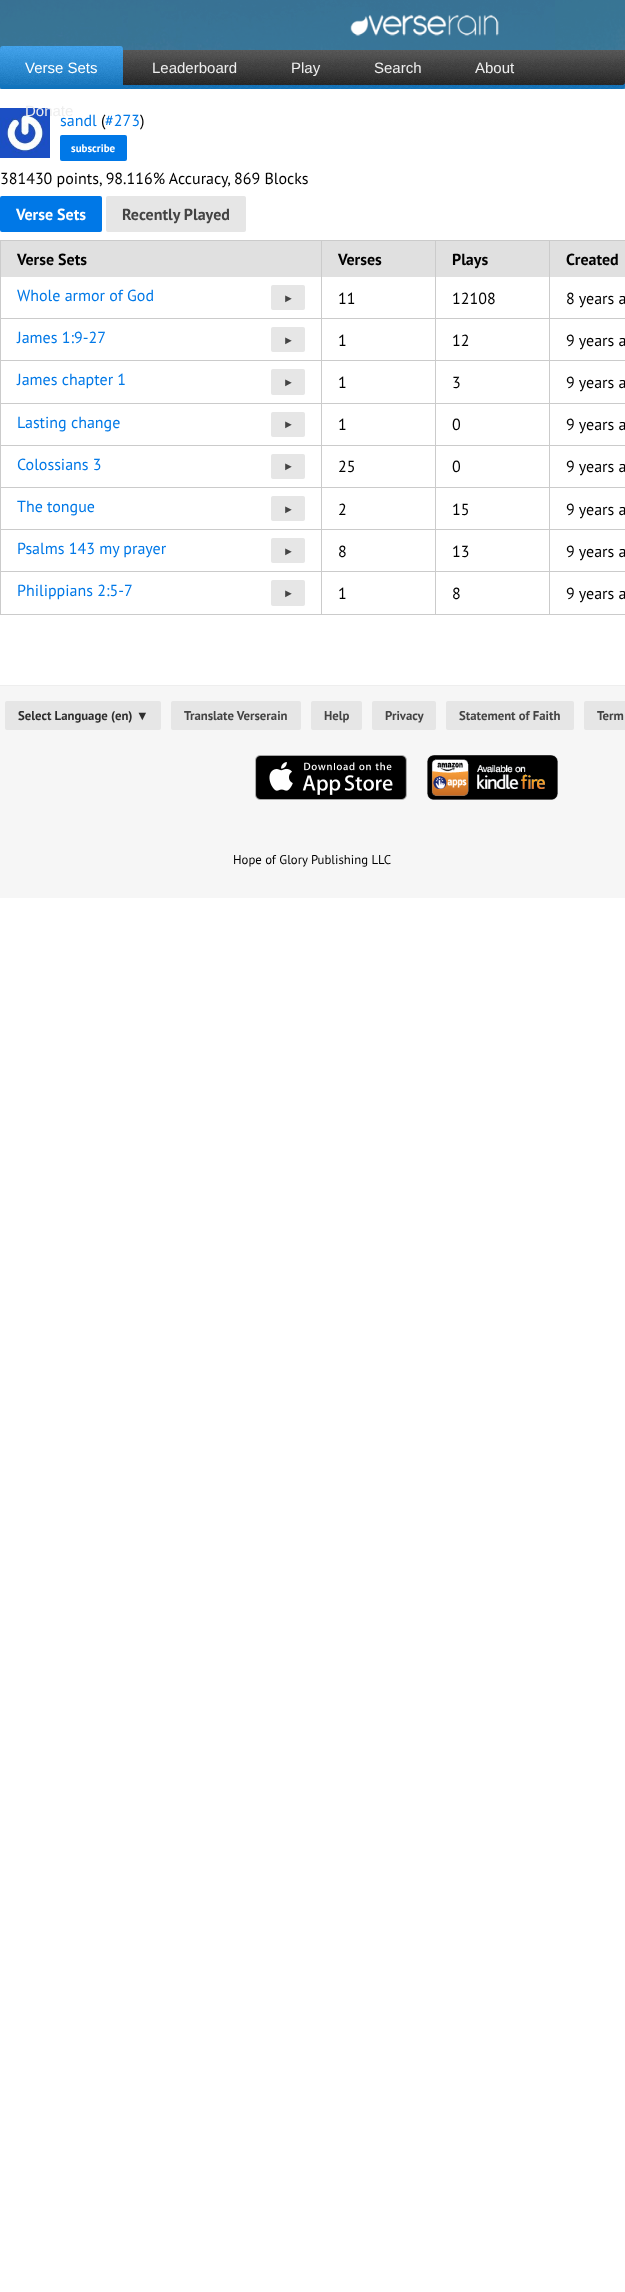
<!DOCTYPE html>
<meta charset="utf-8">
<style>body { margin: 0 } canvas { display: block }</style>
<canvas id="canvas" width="625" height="2292"></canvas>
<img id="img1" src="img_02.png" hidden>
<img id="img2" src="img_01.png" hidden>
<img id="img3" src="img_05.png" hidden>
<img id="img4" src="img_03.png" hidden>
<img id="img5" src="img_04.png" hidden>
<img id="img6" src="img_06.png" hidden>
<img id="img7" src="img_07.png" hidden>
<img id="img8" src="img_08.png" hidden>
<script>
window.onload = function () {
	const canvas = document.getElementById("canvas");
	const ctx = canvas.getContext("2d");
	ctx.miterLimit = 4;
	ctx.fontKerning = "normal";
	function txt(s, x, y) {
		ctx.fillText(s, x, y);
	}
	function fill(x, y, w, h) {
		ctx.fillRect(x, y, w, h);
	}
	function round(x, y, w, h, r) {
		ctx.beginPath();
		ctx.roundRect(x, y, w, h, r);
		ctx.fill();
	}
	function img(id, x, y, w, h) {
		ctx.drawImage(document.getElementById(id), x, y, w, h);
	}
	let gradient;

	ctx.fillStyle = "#FFFFFF";
	fill(0, 0, 625, 2292);
	img("img1", 0, 0, 625, 89);
	ctx.fillStyle = "rgba(0, 0, 0, 0.2)";
	fill(0, 0, 625, 50);
	img("img2", 350, 14, 149, 22);
	ctx.fillStyle = "#0F71BA";
	ctx.beginPath();
	ctx.roundRect(0, 79, 625, 10, [0, 0, 3, 3]);
	ctx.fill();
	img("img3", 0, 82, 625, 7);
	gradient = ctx.createLinearGradient(313, 50, 313, 85);
	gradient.addColorStop(0, "#555555");
	gradient.addColorStop(1, "#222222");
	ctx.fillStyle = gradient;
	ctx.beginPath();
	ctx.roundRect(0, 50, 625, 35, [0, 0, 3, 3]);
	ctx.fill();
	img("img4", 123, 50, 502, 35);
	gradient = ctx.createLinearGradient(62, 46, 62, 89);
	gradient.addColorStop(0, "#3FA4F0");
	gradient.addColorStop(1, "#0F71BA");
	ctx.fillStyle = gradient;
	ctx.beginPath();
	ctx.roundRect(0, 46, 123, 43, [3, 3, 0, 3]);
	ctx.fill();
	img("img5", 0, 46, 123, 39);
	img("img6", 0, 108, 50, 50);
	ctx.fillStyle = "#0078E7";
	round(60, 135, 67, 26, 2);
	round(0, 196, 102, 36, 2);
	ctx.fillStyle = "#E6E6E6";
	round(106, 196, 140, 36, 2);
	ctx.fillStyle = "#CBCBCB";
	fill(0, 240, 625, 1);
	fill(0, 614, 625, 1);
	fill(0, 240, 1, 375);
	ctx.fillStyle = "#E0E0E0";
	fill(1, 241, 624, 36);
	ctx.fillStyle = "#CBCBCB";
	fill(549, 571, 1, 44);
	fill(549, 571, 76, 1);
	fill(549, 529, 1, 43);
	fill(549, 529, 76, 1);
	fill(549, 487, 1, 43);
	fill(549, 487, 76, 1);
	fill(549, 445, 1, 43);
	fill(549, 445, 76, 1);
	fill(549, 403, 1, 43);
	fill(549, 403, 76, 1);
	fill(549, 360, 1, 44);
	fill(549, 360, 76, 1);
	fill(549, 318, 1, 43);
	fill(549, 318, 76, 1);
	fill(549, 240, 1, 79);
	fill(435, 571, 1, 44);
	fill(435, 571, 115, 1);
	fill(435, 529, 1, 43);
	fill(435, 529, 115, 1);
	fill(435, 487, 1, 43);
	fill(435, 487, 115, 1);
	fill(435, 445, 1, 43);
	fill(435, 445, 115, 1);
	fill(435, 403, 1, 43);
	fill(435, 403, 115, 1);
	fill(435, 360, 1, 44);
	fill(435, 360, 115, 1);
	fill(435, 318, 1, 43);
	fill(435, 318, 115, 1);
	fill(435, 240, 1, 79);
	fill(321, 571, 1, 44);
	fill(321, 571, 115, 1);
	fill(321, 529, 1, 43);
	fill(321, 529, 115, 1);
	fill(321, 487, 1, 43);
	fill(321, 487, 115, 1);
	fill(321, 445, 1, 43);
	fill(321, 445, 115, 1);
	fill(321, 403, 1, 43);
	fill(321, 403, 115, 1);
	fill(321, 360, 1, 44);
	fill(321, 360, 115, 1);
	fill(321, 318, 1, 43);
	fill(321, 318, 115, 1);
	fill(321, 240, 1, 79);
	fill(0, 318, 322, 1);
	ctx.fillStyle = "#E6E6E6";
	round(271, 285, 34, 25, 2);
	ctx.fillStyle = "#CBCBCB";
	fill(0, 360, 322, 1);
	ctx.fillStyle = "#E6E6E6";
	round(271, 327, 34, 25, 2);
	ctx.fillStyle = "#CBCBCB";
	fill(0, 403, 322, 1);
	ctx.fillStyle = "#E6E6E6";
	round(271, 369, 34, 26, 2);
	ctx.fillStyle = "#CBCBCB";
	fill(0, 445, 322, 1);
	ctx.fillStyle = "#E6E6E6";
	round(271, 412, 34, 25, 2);
	ctx.fillStyle = "#CBCBCB";
	fill(0, 487, 322, 1);
	ctx.fillStyle = "#E6E6E6";
	round(271, 454, 34, 25, 2);
	ctx.fillStyle = "#CBCBCB";
	fill(0, 529, 322, 1);
	ctx.fillStyle = "#E6E6E6";
	round(271, 496, 34, 25, 2);
	ctx.fillStyle = "#CBCBCB";
	fill(0, 571, 322, 1);
	ctx.fillStyle = "#E6E6E6";
	round(271, 538, 34, 25, 2);
	round(271, 580, 34, 26, 2);
	ctx.fillStyle = "#F6F6F6";
	fill(0, 686, 625, 212);
	ctx.fillStyle = "#EEEEEE";
	fill(0, 685, 625, 1);
	ctx.fillStyle = "#E6E6E6";
	round(5, 701, 156, 29, 2);
	round(171, 701, 130, 29, 2);
	round(311, 701, 51, 29, 2);
	round(372, 701, 64, 29, 2);
	round(446, 701, 128, 29, 2);
	round(584, 701, 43, 29, 2);
	img("img7", 255, 755, 152, 45);
	img("img8", 427, 755, 131, 45);
	ctx.font = "15px Liberation Sans";
	ctx.fillStyle = "#FFFFFF";
	txt("Verse Sets", 25, 73);
	ctx.fillStyle = "#EEEEEE";
	txt("Leaderboard", 152, 73);
	txt("Play", 291, 73);
	txt("Search", 374, 73);
	txt("About", 475, 73);
	txt("Donate", 25, 116);
	ctx.font = "16px PT Sans";
	ctx.fillStyle = "#0078E7";
	txt("sandl", 60, 126);
	ctx.fillStyle = "#000000";
	txt("(", 101, 126);
	ctx.fillStyle = "#0078E7";
	txt("#273", 105, 126);
	ctx.fillStyle = "#000000";
	txt(")", 140, 126);
	ctx.font = "bold 11px PT Sans";
	ctx.fillStyle = "#FFFFFF";
	txt("subscribe", 71, 152);
	ctx.font = "16px PT Sans";
	ctx.fillStyle = "#000000";
	txt("381430 points, 98.116% Accuracy, 869 Blocks", 0, 184);
	ctx.font = "bold 16px PT Sans";
	ctx.fillStyle = "#FFFFFF";
	txt("Verse Sets", 16, 220);
	ctx.fillStyle = "#444444";
	txt("Recently Played", 122, 220);
	ctx.fillStyle = "#000000";
	txt("Verse Sets", 17, 265);
	txt("Verses", 338, 265);
	txt("Plays", 452, 265);
	txt("Created", 566, 265);
	ctx.font = "16px PT Sans";
	ctx.fillStyle = "#0078E7";
	txt("Whole armor of God", 17, 301);
	ctx.font = "bold 11px Liberation Sans";
	ctx.fillStyle = "#444444";
	txt("►", 283, 302);
	ctx.font = "16px PT Sans";
	ctx.fillStyle = "#000000";
	txt("11", 338, 304);
	txt("12108", 452, 304);
	txt("8 years a", 566, 304);
	ctx.fillStyle = "#0078E7";
	txt("James 1:9-27", 17, 343);
	ctx.font = "bold 11px Liberation Sans";
	ctx.fillStyle = "#444444";
	txt("►", 283, 344);
	ctx.font = "16px PT Sans";
	ctx.fillStyle = "#000000";
	txt("1", 338, 346);
	txt("12", 452, 346);
	txt("9 years a", 566, 346);
	ctx.fillStyle = "#0078E7";
	txt("James chapter 1", 17, 385);
	ctx.font = "bold 11px Liberation Sans";
	ctx.fillStyle = "#444444";
	txt("►", 283, 386);
	ctx.font = "16px PT Sans";
	ctx.fillStyle = "#000000";
	txt("1", 338, 388);
	txt("3", 452, 388);
	txt("9 years a", 566, 388);
	ctx.fillStyle = "#0078E7";
	txt("Lasting change", 17, 428);
	ctx.font = "bold 11px Liberation Sans";
	ctx.fillStyle = "#444444";
	txt("►", 283, 428);
	ctx.font = "16px PT Sans";
	ctx.fillStyle = "#000000";
	txt("1", 338, 430);
	txt("0", 452, 430);
	txt("9 years a", 566, 430);
	ctx.fillStyle = "#0078E7";
	txt("Colossians 3", 17, 470);
	ctx.font = "bold 11px Liberation Sans";
	ctx.fillStyle = "#444444";
	txt("►", 283, 470);
	ctx.font = "16px PT Sans";
	ctx.fillStyle = "#000000";
	txt("25", 338, 472);
	txt("0", 452, 472);
	txt("9 years a", 566, 472);
	ctx.fillStyle = "#0078E7";
	txt("The tongue", 17, 512);
	ctx.font = "bold 11px Liberation Sans";
	ctx.fillStyle = "#444444";
	txt("►", 283, 513);
	ctx.font = "16px PT Sans";
	ctx.fillStyle = "#000000";
	txt("2", 338, 515);
	txt("15", 452, 515);
	txt("9 years a", 566, 515);
	ctx.fillStyle = "#0078E7";
	txt("Psalms 143 my prayer", 17, 554);
	ctx.font = "bold 11px Liberation Sans";
	ctx.fillStyle = "#444444";
	txt("►", 283, 555);
	ctx.font = "16px PT Sans";
	ctx.fillStyle = "#000000";
	txt("8", 338, 557);
	txt("13", 452, 557);
	txt("9 years a", 566, 557);
	ctx.fillStyle = "#0078E7";
	txt("Philippians 2:5-7", 17, 596);
	ctx.font = "bold 11px Liberation Sans";
	ctx.fillStyle = "#444444";
	txt("►", 283, 597);
	ctx.font = "16px PT Sans";
	ctx.fillStyle = "#000000";
	txt("1", 338, 599);
	txt("8", 452, 599);
	txt("9 years a", 566, 599);
	ctx.font = "bold 12.75px PT Sans";
	ctx.fillStyle = "#2E2E2E";
	txt("Select Language (en)", 18, 720);
	ctx.font = "bold 12.75px Liberation Sans";
	txt("▼", 136, 720);
	ctx.font = "bold 12.75px PT Sans";
	ctx.fillStyle = "#444444";
	txt("Translate Verserain", 184, 720);
	txt("Help", 324, 720);
	txt("Privacy", 385, 720);
	txt("Statement of Faith", 459, 720);
	txt("Term", 597, 720);
	ctx.font = "12.75px PT Sans";
	ctx.fillStyle = "#000000";
	txt("Hope of Glory Publishing LLC", 233, 864);
};
</script>
